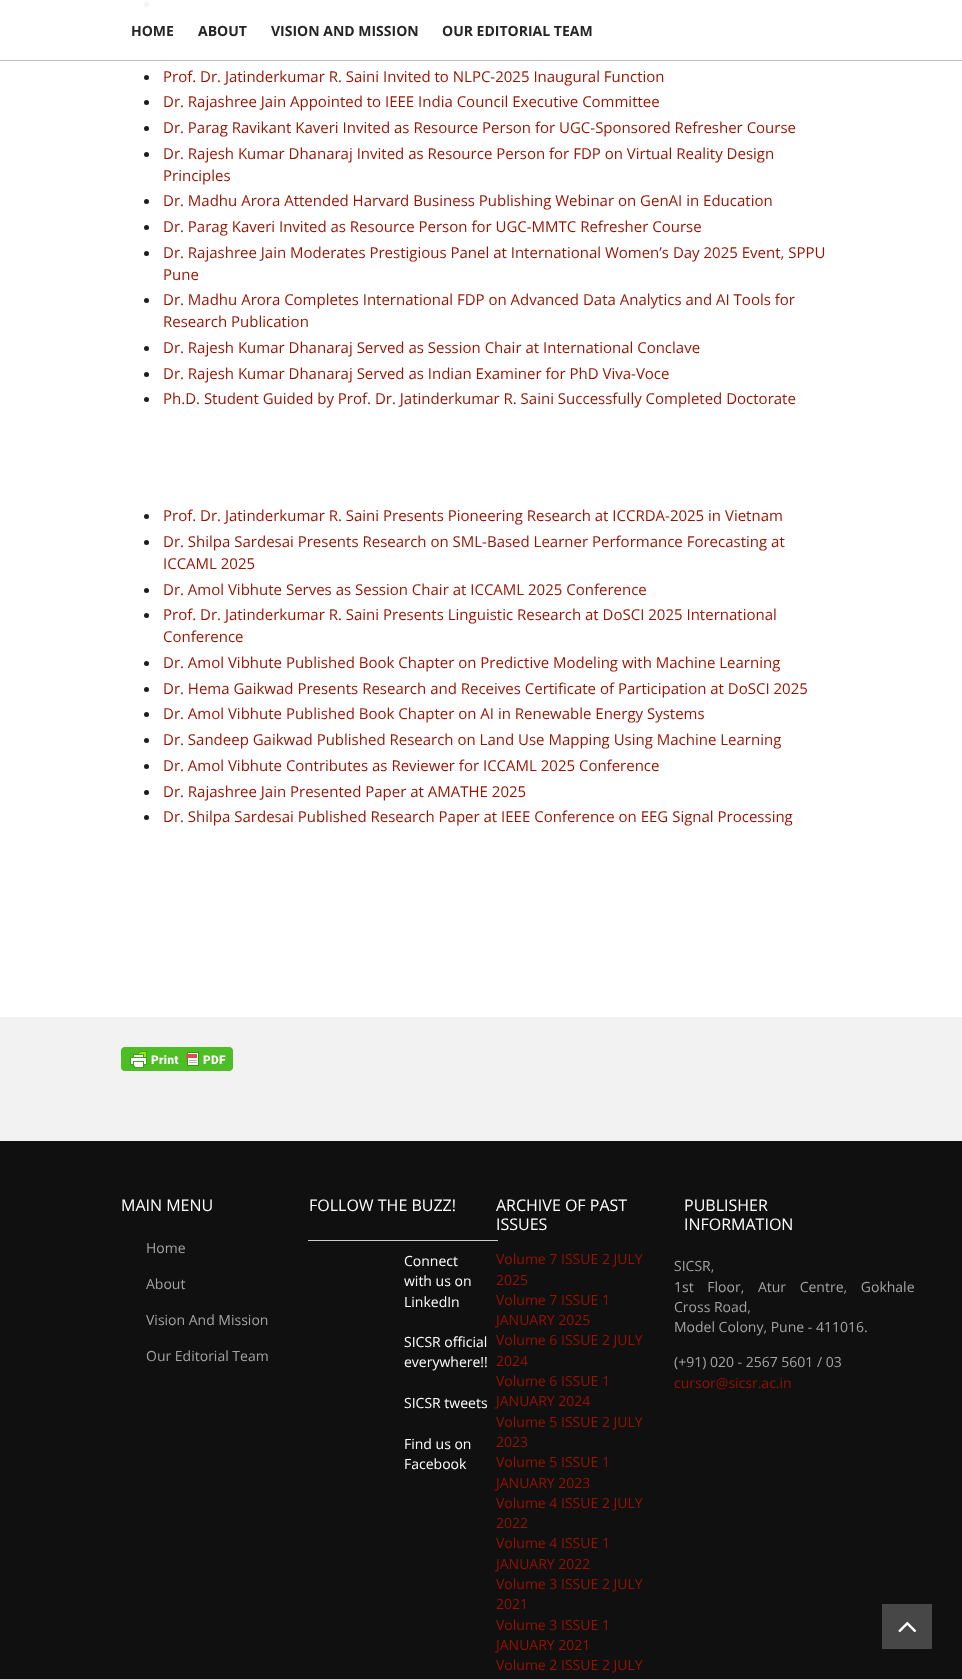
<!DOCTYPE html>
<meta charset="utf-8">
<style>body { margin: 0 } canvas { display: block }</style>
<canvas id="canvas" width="962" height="1679"></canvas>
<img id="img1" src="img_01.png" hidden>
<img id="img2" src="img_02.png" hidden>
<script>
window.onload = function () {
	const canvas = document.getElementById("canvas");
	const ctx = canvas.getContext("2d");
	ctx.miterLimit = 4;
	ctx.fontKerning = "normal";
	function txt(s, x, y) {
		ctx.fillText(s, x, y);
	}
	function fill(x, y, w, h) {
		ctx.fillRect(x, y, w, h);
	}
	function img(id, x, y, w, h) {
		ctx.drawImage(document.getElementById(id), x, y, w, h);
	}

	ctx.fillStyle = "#FFFFFF";
	fill(0, 0, 962, 1679);
	ctx.fillStyle = "#C2C2C2";
	fill(0, 60, 962, 1);
	ctx.fillStyle = "#F4F4F4";
	ctx.beginPath();
	ctx.arc(146.5, 4.5, 2.5, 0, Math.PI * 2);
	ctx.fill();
	ctx.fillStyle = "#1E1E1E";
	ctx.beginPath();
	ctx.arc(146.5, 77.5, 2.5, 0, Math.PI * 2);
	ctx.fill();
	ctx.beginPath();
	ctx.arc(146.5, 102.5, 2.5, 0, Math.PI * 2);
	ctx.fill();
	ctx.beginPath();
	ctx.arc(146.5, 128.5, 2.5, 0, Math.PI * 2);
	ctx.fill();
	ctx.beginPath();
	ctx.arc(146.5, 154.5, 2.5, 0, Math.PI * 2);
	ctx.fill();
	ctx.beginPath();
	ctx.arc(146.5, 201.5, 2.5, 0, Math.PI * 2);
	ctx.fill();
	ctx.beginPath();
	ctx.arc(146.5, 227.5, 2.5, 0, Math.PI * 2);
	ctx.fill();
	ctx.beginPath();
	ctx.arc(146.5, 253.5, 2.5, 0, Math.PI * 2);
	ctx.fill();
	ctx.beginPath();
	ctx.arc(146.5, 300.5, 2.5, 0, Math.PI * 2);
	ctx.fill();
	ctx.beginPath();
	ctx.arc(146.5, 348.5, 2.5, 0, Math.PI * 2);
	ctx.fill();
	ctx.beginPath();
	ctx.arc(146.5, 374.5, 2.5, 0, Math.PI * 2);
	ctx.fill();
	ctx.beginPath();
	ctx.arc(146.5, 399.5, 2.5, 0, Math.PI * 2);
	ctx.fill();
	ctx.beginPath();
	ctx.arc(146.5, 516.5, 2.5, 0, Math.PI * 2);
	ctx.fill();
	ctx.beginPath();
	ctx.arc(146.5, 542.5, 2.5, 0, Math.PI * 2);
	ctx.fill();
	ctx.beginPath();
	ctx.arc(146.5, 590.5, 2.5, 0, Math.PI * 2);
	ctx.fill();
	ctx.beginPath();
	ctx.arc(146.5, 615.5, 2.5, 0, Math.PI * 2);
	ctx.fill();
	ctx.beginPath();
	ctx.arc(146.5, 663.5, 2.5, 0, Math.PI * 2);
	ctx.fill();
	ctx.beginPath();
	ctx.arc(146.5, 689.5, 2.5, 0, Math.PI * 2);
	ctx.fill();
	ctx.beginPath();
	ctx.arc(146.5, 714.5, 2.5, 0, Math.PI * 2);
	ctx.fill();
	ctx.beginPath();
	ctx.arc(146.5, 740.5, 2.5, 0, Math.PI * 2);
	ctx.fill();
	ctx.beginPath();
	ctx.arc(146.5, 766.5, 2.5, 0, Math.PI * 2);
	ctx.fill();
	ctx.beginPath();
	ctx.arc(146.5, 792.5, 2.5, 0, Math.PI * 2);
	ctx.fill();
	ctx.beginPath();
	ctx.arc(146.5, 817.5, 2.5, 0, Math.PI * 2);
	ctx.fill();
	ctx.fillStyle = "#F2F2F2";
	fill(0, 1017, 962, 124);
	img("img1", 121, 1047, 112, 24);
	ctx.fillStyle = "#101010";
	fill(0, 1141, 962, 538);
	ctx.fillStyle = "#CCCCCC";
	fill(308, 1240, 190, 1);
	ctx.fillStyle = "#474747";
	fill(882, 1604, 50, 45);
	img("img2", 898, 1621, 19, 12);
	ctx.font = "bold 14px Open Sans";
	ctx.fillStyle = "#252525";
	txt("HOME", 131, 36);
	txt("ABOUT", 198, 36);
	txt("VISION AND MISSION", 271, 36);
	txt("OUR EDITORIAL TEAM", 442, 36);
	ctx.font = "15px Open Sans";
	ctx.fillStyle = "#961300";
	txt("Prof. Dr. Jatinderkumar R. Saini Invited to NLPC-2025 Inaugural Function", 163, 82);
	txt("Dr. Rajashree Jain Appointed to IEEE India Council Executive Committee", 163, 107);
	txt("Dr. Parag Ravikant Kaveri Invited as Resource Person for UGC-Sponsored Refresher Course", 163, 133);
	txt("Dr. Rajesh Kumar Dhanaraj Invited as Resource Person for FDP on Virtual Reality Design", 163, 159);
	txt("Principles", 163, 181);
	txt("Dr. Madhu Arora Attended Harvard Business Publishing Webinar on GenAI in Education", 163, 206);
	txt("Dr. Parag Kaveri Invited as Resource Person for UGC-MMTC Refresher Course", 163, 232);
	txt("Dr. Rajashree Jain Moderates Prestigious Panel at International Women’s Day 2025 Event, SPPU", 163, 258);
	txt("Pune", 163, 280);
	txt("Dr. Madhu Arora Completes International FDP on Advanced Data Analytics and AI Tools for", 163, 305);
	txt("Research Publication", 163, 327);
	txt("Dr. Rajesh Kumar Dhanaraj Served as Session Chair at International Conclave", 163, 353);
	txt("Dr. Rajesh Kumar Dhanaraj Served as Indian Examiner for PhD Viva-Voce", 163, 379);
	txt("Ph.D. Student Guided by Prof. Dr. Jatinderkumar R. Saini Successfully Completed Doctorate", 163, 404);
	txt("Prof. Dr. Jatinderkumar R. Saini Presents Pioneering Research at ICCRDA-2025 in Vietnam", 163, 521);
	txt("Dr. Shilpa Sardesai Presents Research on SML-Based Learner Performance Forecasting at", 163, 547);
	txt("ICCAML 2025", 163, 569);
	txt("Dr. Amol Vibhute Serves as Session Chair at ICCAML 2025 Conference", 163, 595);
	txt("Prof. Dr. Jatinderkumar R. Saini Presents Linguistic Research at DoSCI 2025 International", 163, 620);
	txt("Conference", 163, 642);
	txt("Dr. Amol Vibhute Published Book Chapter on Predictive Modeling with Machine Learning", 163, 668);
	txt("Dr. Hema Gaikwad Presents Research and Receives Certificate of Participation at DoSCI 2025", 163, 694);
	txt("Dr. Amol Vibhute Published Book Chapter on AI in Renewable Energy Systems", 163, 719);
	txt("Dr. Sandeep Gaikwad Published Research on Land Use Mapping Using Machine Learning", 163, 745);
	txt("Dr. Amol Vibhute Contributes as Reviewer for ICCAML 2025 Conference", 163, 771);
	txt("Dr. Rajashree Jain Presented Paper at AMATHE 2025", 163, 797);
	txt("Dr. Shilpa Sardesai Published Research Paper at IEEE Conference on EEG Signal Processing", 163, 822);
	ctx.font = "16px Open Sans";
	ctx.fillStyle = "#FFFFFF";
	txt("MAIN MENU", 121, 1211);
	ctx.font = "14px Open Sans";
	ctx.fillStyle = "#A3A3A3";
	txt("Home", 146, 1253);
	txt("About", 146, 1289);
	txt("Vision And Mission", 146, 1325);
	txt("Our Editorial Team", 146, 1361);
	ctx.font = "16px Open Sans";
	ctx.fillStyle = "#FFFFFF";
	txt("FOLLOW THE BUZZ!", 309, 1211);
	ctx.font = "14px Open Sans";
	txt("Connect", 404, 1266);
	txt("with us on", 404, 1286);
	txt("LinkedIn", 404, 1307);
	txt("SICSR official", 404, 1347);
	txt("everywhere!!", 404, 1367);
	txt("SICSR tweets", 404, 1408);
	txt("Find us on", 404, 1449);
	txt("Facebook", 404, 1469);
	ctx.font = "16px Open Sans";
	txt("ARCHIVE OF PAST", 496, 1211);
	txt("ISSUES", 496, 1230);
	ctx.font = "14px Open Sans";
	ctx.fillStyle = "#961300";
	txt("Volume 7 ISSUE 2 JULY", 496, 1264);
	txt("2025", 496, 1285);
	txt("Volume 7 ISSUE 1", 496, 1305);
	txt("JANUARY 2025", 496, 1325);
	txt("Volume 6 ISSUE 2 JULY", 496, 1345);
	txt("2024", 496, 1366);
	txt("Volume 6 ISSUE 1", 496, 1386);
	txt("JANUARY 2024", 496, 1406);
	txt("Volume 5 ISSUE 2 JULY", 496, 1427);
	txt("2023", 496, 1447);
	txt("Volume 5 ISSUE 1", 496, 1467);
	txt("JANUARY 2023", 496, 1488);
	txt("Volume 4 ISSUE 2 JULY", 496, 1508);
	txt("2022", 496, 1528);
	txt("Volume 4 ISSUE 1", 496, 1548);
	txt("JANUARY 2022", 496, 1569);
	txt("Volume 3 ISSUE 2 JULY", 496, 1589);
	txt("2021", 496, 1609);
	txt("Volume 3 ISSUE 1", 496, 1630);
	txt("JANUARY 2021", 496, 1650);
	txt("Volume 2 ISSUE 2 JULY", 496, 1670);
	ctx.font = "16px Open Sans";
	ctx.fillStyle = "#FFFFFF";
	txt("PUBLISHER", 684, 1211);
	txt("INFORMATION", 684, 1230);
	ctx.font = "14px Open Sans";
	ctx.fillStyle = "#A3A3A3";
	txt("SICSR,", 674, 1271);
	ctx.wordSpacing = "10px";
	txt("1st Floor, Atur Centre, Gokhale", 674, 1292);
	ctx.wordSpacing = "0px";
	txt("Cross Road,", 674, 1312);
	txt("Model Colony, Pune - 411016.", 674, 1332);
	txt("(+91) 020 - 2567 5601 / 03", 674, 1367);
	ctx.fillStyle = "#961300";
	txt("cursor@sicsr.ac.in", 674, 1388);
};
</script>
